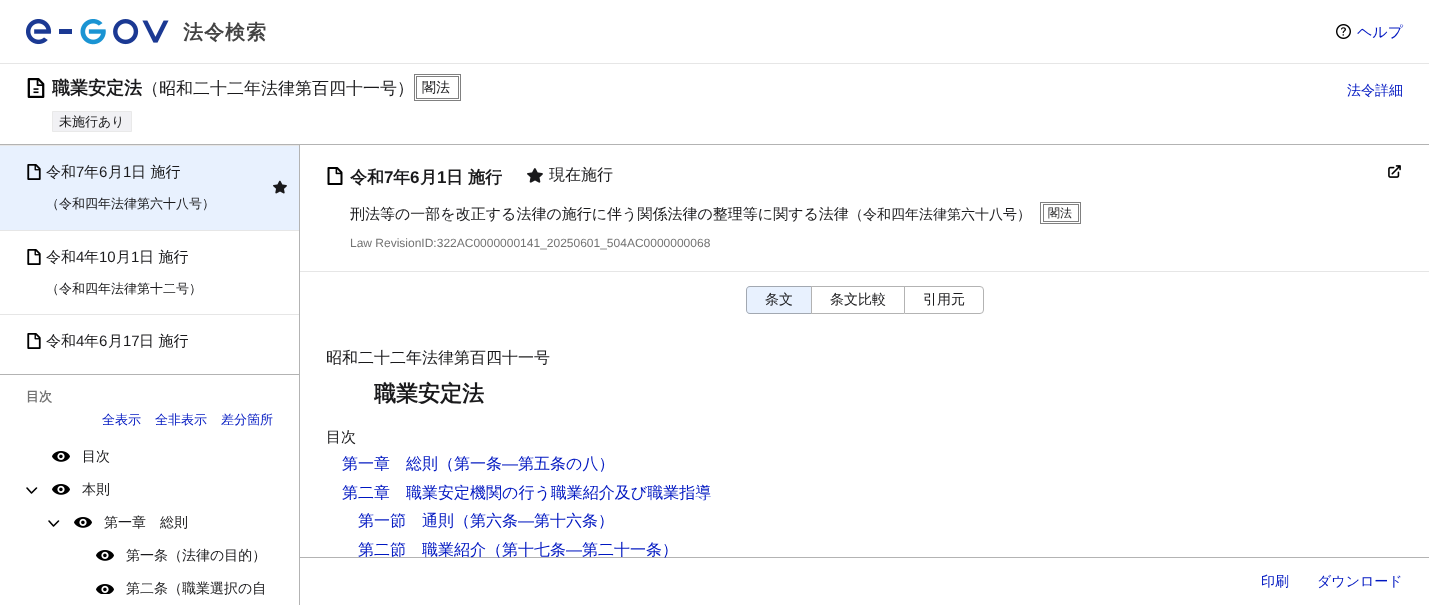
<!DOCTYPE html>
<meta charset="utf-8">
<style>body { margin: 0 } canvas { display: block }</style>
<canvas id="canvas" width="1429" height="605"></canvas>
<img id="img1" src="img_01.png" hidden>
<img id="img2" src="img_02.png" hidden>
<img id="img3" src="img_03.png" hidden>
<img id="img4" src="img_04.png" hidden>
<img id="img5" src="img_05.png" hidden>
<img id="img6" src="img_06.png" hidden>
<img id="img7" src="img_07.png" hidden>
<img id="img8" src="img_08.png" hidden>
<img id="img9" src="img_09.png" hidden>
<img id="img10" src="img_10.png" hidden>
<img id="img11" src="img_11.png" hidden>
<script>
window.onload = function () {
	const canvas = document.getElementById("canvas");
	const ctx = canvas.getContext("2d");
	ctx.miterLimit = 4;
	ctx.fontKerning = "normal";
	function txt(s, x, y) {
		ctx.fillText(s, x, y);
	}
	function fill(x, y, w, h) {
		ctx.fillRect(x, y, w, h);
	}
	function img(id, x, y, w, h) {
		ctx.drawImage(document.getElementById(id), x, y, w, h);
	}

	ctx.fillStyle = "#FFFFFF";
	fill(0, 0, 1429, 605);
	ctx.fillStyle = "#E6E6E6";
	fill(0, 63, 1429, 1);
	img("img1", 26, 19, 143, 26);
	img("img2", 1336, 24, 15, 15);
	ctx.fillStyle = "#B3B3B3";
	fill(0, 144, 1429, 1);
	img("img3", 27, 78, 18, 20);
	ctx.strokeStyle = "#808080";
	ctx.strokeRect(414.5, 74.5, 46, 26);
	ctx.strokeRect(416.5, 76.5, 42, 22);
	ctx.fillStyle = "#F1F1F4";
	ctx.beginPath();
	ctx.rect(52.5, 111.5, 79, 20);
	ctx.fill();
	ctx.strokeStyle = "#E9E9E9";
	ctx.stroke();
	ctx.fillStyle = "#B3B3B3";
	fill(299, 145, 1, 460);
	fill(0, 374, 299, 1);
	ctx.fillStyle = "#E6E6E6";
	fill(0, 145, 299, 1);
	ctx.fillStyle = "#E8F1FE";
	fill(0, 146, 299, 84);
	img("img4", 27, 164, 14, 16);
	img("img5", 273, 180, 14, 14);
	ctx.fillStyle = "#E6E6E6";
	fill(0, 230, 299, 1);
	img("img6", 27, 249, 14, 16);
	fill(0, 314, 299, 1);
	img("img6", 27, 333, 14, 16);
	img("img7", 52, 451, 18, 11);
	ctx.beginPath();
	ctx.moveTo(27, 488);
	ctx.lineTo(31.5, 493);
	ctx.lineTo(36.5, 488);
	ctx.moveTo(49, 521);
	ctx.lineTo(53.5, 526);
	ctx.lineTo(58.5, 521);
	ctx.strokeStyle = "#000000";
	ctx.lineWidth = 1.6;
	ctx.lineCap = "round";
	ctx.lineJoin = "round";
	ctx.stroke();
	img("img7", 52, 484, 18, 11);
	img("img7", 74, 517, 18, 11);
	img("img7", 96, 550, 18, 11);
	img("img8", 96, 584, 18, 10);
	fill(300, 271, 1129, 1);
	img("img9", 327, 167, 16, 18);
	img("img10", 527, 168, 16, 15);
	img("img11", 1388, 165, 13, 13);
	ctx.strokeStyle = "#808080";
	ctx.lineWidth = 1;
	ctx.lineJoin = "miter";
	ctx.strokeRect(1040.5, 202.5, 40, 21);
	ctx.strokeRect(1043.5, 204.5, 35, 17);
	ctx.fillStyle = "#E8F1FE";
	ctx.beginPath();
	ctx.roundRect(746, 286, 65, 28, [4, 0, 0, 4]);
	ctx.fill();
	ctx.fillStyle = "rgba(0, 0, 0, 0.3)";
	ctx.beginPath();
	ctx.moveTo(750, 286);
	ctx.lineTo(811, 286);
	ctx.lineTo(811, 314);
	ctx.lineTo(750, 314);
	ctx.bezierCurveTo(748, 314, 746, 312, 746, 310);
	ctx.lineTo(746, 290);
	ctx.bezierCurveTo(746, 288, 748, 286, 750, 286);
	ctx.closePath();
	ctx.moveTo(750, 287);
	ctx.lineTo(811, 287);
	ctx.lineTo(811, 313);
	ctx.lineTo(750, 313);
	ctx.bezierCurveTo(748, 313, 747, 312, 747, 310);
	ctx.lineTo(747, 290);
	ctx.bezierCurveTo(747, 288, 748, 287, 750, 287);
	ctx.closePath();
	ctx.fill("evenodd");
	ctx.fillStyle = "#B3B3B3";
	ctx.beginPath();
	ctx.moveTo(811, 286);
	ctx.lineTo(904, 286);
	ctx.lineTo(904, 287);
	ctx.lineTo(812, 287);
	ctx.closePath();
	ctx.fill();
	ctx.beginPath();
	ctx.moveTo(904, 314);
	ctx.lineTo(811, 314);
	ctx.lineTo(812, 313);
	ctx.lineTo(904, 313);
	ctx.closePath();
	ctx.fill();
	ctx.fillStyle = "rgba(0, 0, 0, 0.3)";
	ctx.beginPath();
	ctx.moveTo(811, 314);
	ctx.lineTo(811, 286);
	ctx.lineTo(812, 287);
	ctx.lineTo(812, 313);
	ctx.closePath();
	ctx.fill();
	ctx.beginPath();
	ctx.roundRect(904.5, 286.5, 79, 27, [0, 3.5, 3.5, 0]);
	ctx.strokeStyle = "#B3B3B3";
	ctx.stroke();
	ctx.fillStyle = "#B3B3B3";
	fill(300, 557, 1129, 1);
	ctx.letterSpacing = "1px";
	ctx.font = "bold 20px WenQuanYi Zen Hei";
	ctx.fillStyle = "#444444";
	txt("法令検索", 183, 39);
	ctx.letterSpacing = "0px";
	ctx.font = "500 15px WenQuanYi Zen Hei";
	ctx.fillStyle = "#0017C1";
	txt("ヘルプ", 1357, 37);
	ctx.font = "bold 18px WenQuanYi Zen Hei";
	ctx.fillStyle = "#1A1A1C";
	txt("職業安定法", 52, 94);
	ctx.font = "500 17px WenQuanYi Zen Hei";
	txt("（昭和二十二年法律第百四十一号）", 142, 94);
	ctx.font = "500 14px WenQuanYi Zen Hei";
	txt("閣法", 422, 92);
	ctx.font = "500 13px WenQuanYi Zen Hei";
	txt("未施行あり", 59, 126);
	ctx.font = "500 14px WenQuanYi Zen Hei";
	ctx.fillStyle = "#0017C1";
	txt("法令詳細", 1347, 95);
	ctx.font = "500 15px WenQuanYi Zen Hei";
	ctx.fillStyle = "#1A1A1C";
	txt("令和", 46, 177);
	ctx.font = "15px Liberation Sans";
	txt("7", 76, 177);
	ctx.font = "500 15px WenQuanYi Zen Hei";
	txt("年", 84, 177);
	ctx.font = "15px Liberation Sans";
	txt("6", 99, 177);
	ctx.font = "500 15px WenQuanYi Zen Hei";
	txt("月", 108, 177);
	ctx.font = "15px Liberation Sans";
	txt("1", 123, 177);
	ctx.font = "500 15px WenQuanYi Zen Hei";
	txt("日 施行", 131, 177);
	ctx.font = "500 13px WenQuanYi Zen Hei";
	txt("（令和四年法律第六十八号）", 46, 208);
	ctx.font = "500 15px WenQuanYi Zen Hei";
	txt("令和", 46, 262);
	ctx.font = "15px Liberation Sans";
	txt("4", 76, 262);
	ctx.font = "500 15px WenQuanYi Zen Hei";
	txt("年", 84, 262);
	ctx.font = "15px Liberation Sans";
	txt("10", 99, 262);
	ctx.font = "500 15px WenQuanYi Zen Hei";
	txt("月", 116, 262);
	ctx.font = "15px Liberation Sans";
	txt("1", 131, 262);
	ctx.font = "500 15px WenQuanYi Zen Hei";
	txt("日 施行", 139, 262);
	ctx.font = "500 13px WenQuanYi Zen Hei";
	txt("（令和四年法律第十二号）", 46, 293);
	ctx.font = "500 15px WenQuanYi Zen Hei";
	txt("令和", 46, 346);
	ctx.font = "15px Liberation Sans";
	txt("4", 76, 346);
	ctx.font = "500 15px WenQuanYi Zen Hei";
	txt("年", 84, 346);
	ctx.font = "15px Liberation Sans";
	txt("6", 99, 346);
	ctx.font = "500 15px WenQuanYi Zen Hei";
	txt("月", 108, 346);
	ctx.font = "15px Liberation Sans";
	txt("17", 123, 346);
	ctx.font = "500 15px WenQuanYi Zen Hei";
	txt("日 施行", 139, 346);
	ctx.font = "bold 13px WenQuanYi Zen Hei";
	ctx.fillStyle = "#737373";
	txt("目次", 26, 401);
	ctx.font = "500 13px WenQuanYi Zen Hei";
	ctx.fillStyle = "#0017C1";
	txt("全表示", 102, 424);
	txt("全非表示", 155, 424);
	txt("差分箇所", 221, 424);
	ctx.font = "500 14px WenQuanYi Zen Hei";
	ctx.fillStyle = "#1A1A1C";
	txt("目次", 82, 461);
	txt("本則", 82, 494);
	txt("第一章　総則", 104, 527);
	txt("第一条（法律の目的）", 126, 560);
	txt("第二条（職業選択の自", 126, 593);
	ctx.font = "bold 17px WenQuanYi Zen Hei";
	txt("令和", 350, 183);
	ctx.font = "bold 17px Liberation Sans";
	txt("7", 384, 183);
	ctx.font = "bold 17px WenQuanYi Zen Hei";
	txt("年", 393, 183);
	ctx.font = "bold 17px Liberation Sans";
	txt("6", 410, 183);
	ctx.font = "bold 17px WenQuanYi Zen Hei";
	txt("月", 420, 183);
	ctx.font = "bold 17px Liberation Sans";
	txt("1", 437, 183);
	ctx.font = "bold 17px WenQuanYi Zen Hei";
	txt("日 施行", 446, 183);
	ctx.font = "500 16px WenQuanYi Zen Hei";
	txt("現在施行", 549, 180);
	ctx.font = "500 15px WenQuanYi Zen Hei";
	txt("刑法等の一部を改正する法律の施行に伴う関係法律の整理等に関する法律", 350, 219);
	ctx.font = "500 14px WenQuanYi Zen Hei";
	txt("（令和四年法律第六十八号）", 849, 219);
	ctx.font = "500 12px WenQuanYi Zen Hei";
	txt("閣法", 1048, 217);
	ctx.font = "12px Liberation Sans";
	ctx.fillStyle = "#737373";
	txt("Law RevisionID:322AC0000000141_20250601_504AC0000000068", 350, 247);
	ctx.font = "500 14px WenQuanYi Zen Hei";
	ctx.fillStyle = "#1A1A1C";
	txt("条文", 765, 304);
	txt("条文比較", 830, 304);
	txt("引用元", 923, 304);
	ctx.font = "500 16px WenQuanYi Zen Hei";
	txt("昭和二十二年法律第百四十一号", 326, 363);
	ctx.font = "bold 22px WenQuanYi Zen Hei";
	txt("職業安定法", 374, 401);
	ctx.font = "500 15px WenQuanYi Zen Hei";
	txt("目次", 326, 442);
	ctx.font = "500 16px WenQuanYi Zen Hei";
	ctx.fillStyle = "#0017C1";
	txt("第一章　総則（第一条", 342, 469);
	ctx.font = "16px Liberation Sans";
	txt("―", 502, 469);
	ctx.font = "500 16px WenQuanYi Zen Hei";
	txt("第五条の八）", 518, 469);
	txt("第二章　職業安定機関の行う職業紹介及び職業指導", 342, 498);
	txt("第一節　通則（第六条", 358, 526);
	ctx.font = "16px Liberation Sans";
	txt("―", 518, 526);
	ctx.font = "500 16px WenQuanYi Zen Hei";
	txt("第十六条）", 534, 526);
	txt("第二節　職業紹介（第十七条", 358, 555);
	ctx.font = "16px Liberation Sans";
	txt("―", 566, 555);
	ctx.font = "500 16px WenQuanYi Zen Hei";
	txt("第二十一条）", 582, 555);
	ctx.font = "500 14px WenQuanYi Zen Hei";
	txt("印刷", 1261, 586);
	txt("ダウンロード", 1317, 586);
};
</script>
